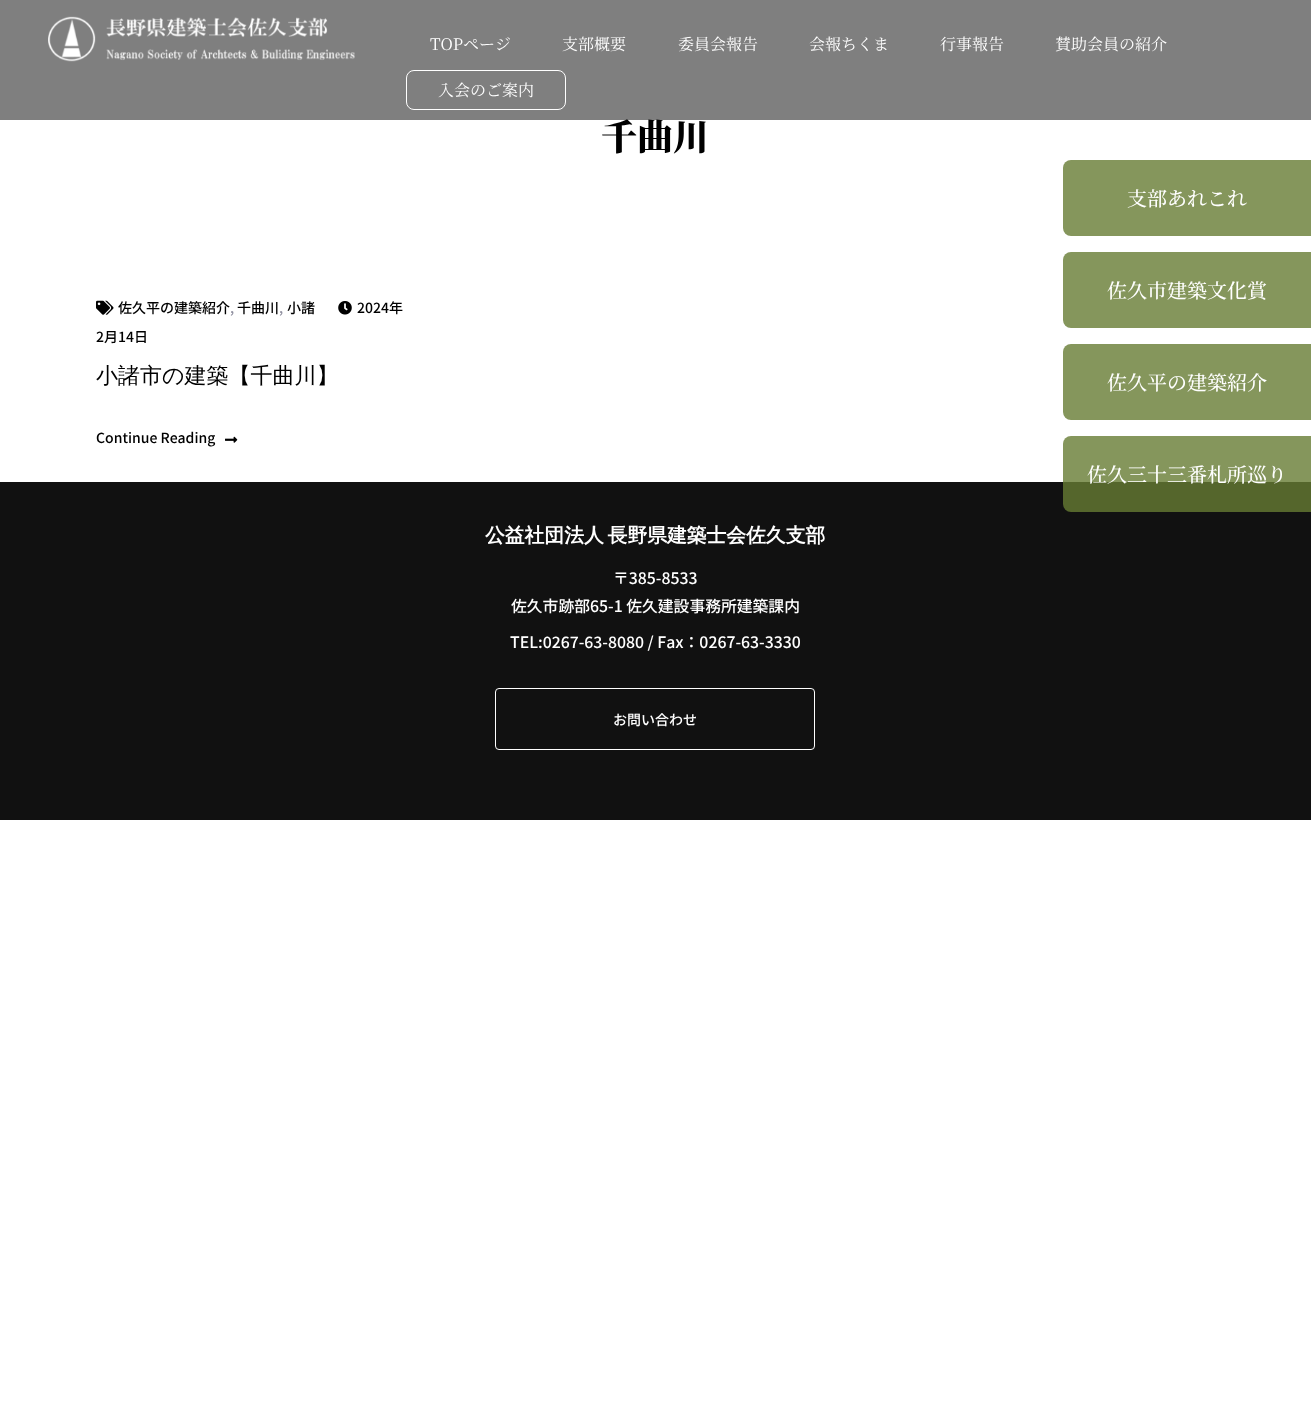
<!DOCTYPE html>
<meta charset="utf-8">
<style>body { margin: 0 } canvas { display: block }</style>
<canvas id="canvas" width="1311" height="1403"></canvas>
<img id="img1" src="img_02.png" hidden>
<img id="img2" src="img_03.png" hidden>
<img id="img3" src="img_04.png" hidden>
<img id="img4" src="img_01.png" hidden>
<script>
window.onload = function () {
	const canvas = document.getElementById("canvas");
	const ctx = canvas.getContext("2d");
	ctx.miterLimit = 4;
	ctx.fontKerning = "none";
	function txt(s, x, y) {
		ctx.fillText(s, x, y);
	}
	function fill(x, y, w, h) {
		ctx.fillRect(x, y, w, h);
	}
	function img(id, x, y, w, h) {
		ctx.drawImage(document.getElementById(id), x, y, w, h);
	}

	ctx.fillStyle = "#FFFFFF";
	fill(0, 0, 1311, 1403);
	img("img1", 96, 300, 18, 15);
	img("img2", 338, 301, 14, 14);
	img("img3", 225, 436, 13, 7);
	ctx.fillStyle = "#111111";
	fill(0, 482, 1311, 338);
	ctx.beginPath();
	ctx.roundRect(495.5, 688.5, 319, 61, 3.5);
	ctx.strokeStyle = "#FFFFFF";
	ctx.stroke();
	ctx.fillStyle = "#85965C";
	ctx.beginPath();
	ctx.roundRect(1063, 160, 248, 76, [8, 0, 0, 8]);
	ctx.fill();
	ctx.beginPath();
	ctx.roundRect(1063, 252, 248, 76, [8, 0, 0, 8]);
	ctx.fill();
	ctx.beginPath();
	ctx.roundRect(1063, 344, 248, 76, [8, 0, 0, 8]);
	ctx.fill();
	ctx.fillStyle = "rgba(102, 124, 51, 0.8)";
	ctx.beginPath();
	ctx.roundRect(1063, 436, 248, 76, [8, 0, 0, 8]);
	ctx.fill();
	ctx.font = "900 36px Noto Serif JP";
	ctx.fillStyle = "#000000";
	txt("千曲川", 601, 150);
	ctx.fillStyle = "rgba(0, 0, 0, 0.5)";
	fill(0, 0, 1311, 120);
	ctx.beginPath();
	ctx.roundRect(406.5, 70.5, 159, 39, 7.5);
	ctx.stroke();
	ctx.font = "16px Noto Serif JP";
	ctx.fillStyle = "#FFFFFF";
	txt("入会のご案内", 438, 96);
	txt("賛助会員の紹介", 1055, 50);
	txt("行事報告", 940, 50);
	txt("会報ちくま", 809, 50);
	txt("委員会報告", 678, 50);
	txt("支部概要", 562, 50);
	txt("TOPページ", 430, 50);
	img("img4", 48, 16, 307, 46);
	ctx.font = "500 14px Noto Sans JP";
	ctx.fillStyle = "#000000";
	txt("佐久平の建築紹介", 118, 313);
	ctx.fillStyle = "#9090A0";
	txt(",", 230, 313);
	ctx.fillStyle = "#000000";
	txt("千曲川", 237, 313);
	ctx.fillStyle = "#9090A0";
	txt(",", 279, 313);
	ctx.fillStyle = "#000000";
	txt("小諸", 287, 313);
	txt("2024年", 357, 313);
	txt("2月14日", 96, 342);
	ctx.font = "500 22px WenQuanYi Zen Hei";
	txt("小諸市の建築【千曲川】", 96, 383);
	ctx.font = "500 14px Noto Sans JP";
	txt("Continue Reading", 96, 443);
	ctx.wordSpacing = "-2px";
	ctx.font = "bold 19.8px WenQuanYi Zen Hei";
	ctx.fillStyle = "#FFFFFF";
	txt("公益社団法人 長野県建築士会佐久支部", 485, 542);
	ctx.wordSpacing = "0px";
	ctx.font = "500 15.8px Noto Sans JP";
	txt("〒385-8533", 613, 584);
	txt("佐久市跡部65-1 佐久建設事務所建築課内", 511, 612);
	txt("TEL:0267-63-8080 / Fax：0267-63-3330", 510, 648);
	ctx.font = "500 14px Noto Sans JP";
	txt("お問い合わせ", 613, 725);
	ctx.font = "500 20px Noto Serif JP";
	txt("支部あれこれ", 1127, 206);
	txt("佐久市建築文化賞", 1107, 298);
	txt("佐久平の建築紹介", 1107, 390);
	txt("佐久三十三番札所巡り", 1087, 482);
};
</script>
